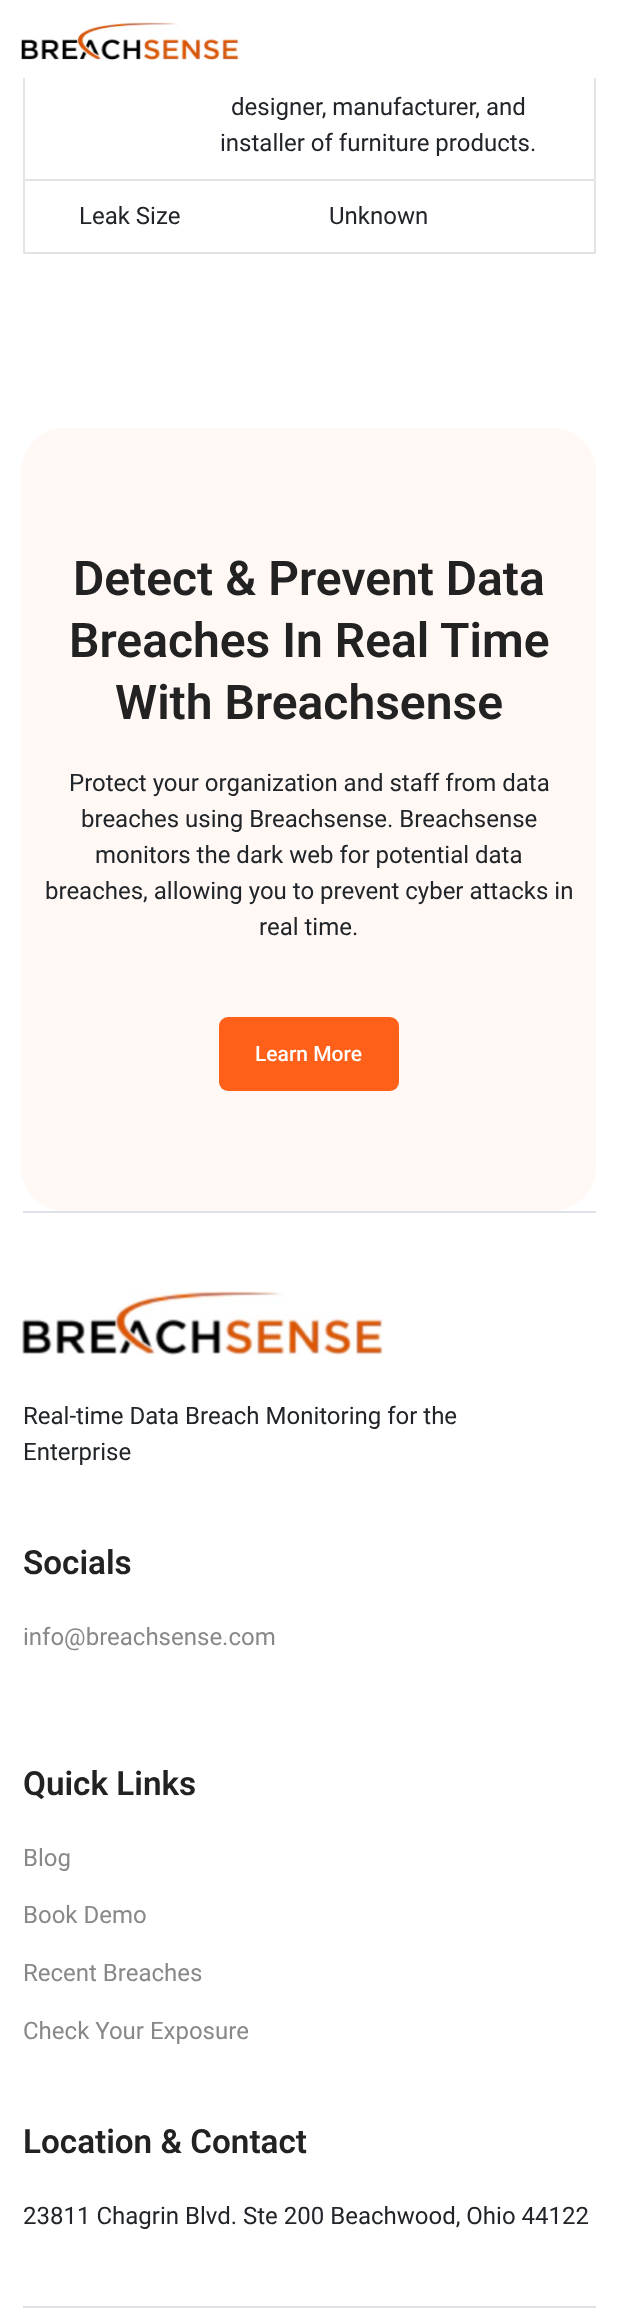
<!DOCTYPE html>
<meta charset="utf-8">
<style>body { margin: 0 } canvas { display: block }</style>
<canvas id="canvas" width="617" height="2321"></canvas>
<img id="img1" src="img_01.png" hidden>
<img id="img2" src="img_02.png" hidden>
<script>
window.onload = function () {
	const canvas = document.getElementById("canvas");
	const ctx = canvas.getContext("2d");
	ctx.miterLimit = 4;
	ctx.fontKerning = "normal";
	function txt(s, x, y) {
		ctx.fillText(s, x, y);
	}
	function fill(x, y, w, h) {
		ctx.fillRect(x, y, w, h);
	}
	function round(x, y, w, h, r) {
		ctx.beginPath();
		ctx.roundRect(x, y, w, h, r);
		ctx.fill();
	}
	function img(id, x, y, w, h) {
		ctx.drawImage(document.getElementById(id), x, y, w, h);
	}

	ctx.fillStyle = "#FFFFFF";
	fill(0, 0, 617, 2321);
	img("img1", 21, 22, 218, 38);
	ctx.fillStyle = "#E4E4E4";
	fill(594, 78, 2, 176);
	fill(23, 252, 573, 2);
	fill(23, 78, 2, 176);
	fill(23, 179, 573, 2);
	ctx.fillStyle = "#FFF8F4";
	round(21, 428, 575, 783, 44);
	ctx.fillStyle = "#FE6019";
	round(219, 1017, 180, 74, 9);
	ctx.fillStyle = "#DEE2E6";
	fill(23, 1211, 573, 2);
	img("img2", 22, 1291, 361, 64);
	fill(23, 2306, 573, 2);
	ctx.font = "24px Roboto";
	ctx.fillStyle = "#212529";
	txt("designer, manufacturer, and", 231, 115);
	txt("installer of furniture products.", 220, 151);
	txt("Leak Size", 79, 224);
	txt("Unknown", 329, 224);
	ctx.font = "600 48px Roboto";
	ctx.fillStyle = "#222222";
	txt("Detect & Prevent Data", 73, 595);
	txt("Breaches In Real Time", 69, 657);
	txt("With Breachsense", 115, 719);
	ctx.font = "24px Roboto";
	ctx.fillStyle = "#212529";
	txt("Protect your organization and staff from data", 69, 791);
	txt("breaches using Breachsense. Breachsense", 81, 827);
	txt("monitors the dark web for potential data", 95, 863);
	txt("breaches, allowing you to prevent cyber attacks in", 45, 899);
	txt("real time.", 259, 935);
	ctx.font = "500 21px Roboto";
	ctx.fillStyle = "#FFFFFF";
	txt("Learn More", 255, 1061);
	ctx.font = "24px Roboto";
	ctx.fillStyle = "#212529";
	txt("Real-time Data Breach Monitoring for the", 23, 1424);
	txt("Enterprise", 23, 1460);
	ctx.font = "600 33.25px Roboto";
	ctx.fillStyle = "#222222";
	txt("Socials", 23, 1574);
	ctx.font = "24px Roboto";
	ctx.fillStyle = "#888888";
	txt("info@breachsense.com", 23, 1645);
	ctx.font = "600 33.25px Roboto";
	ctx.fillStyle = "#222222";
	txt("Quick Links", 23, 1795);
	ctx.font = "24px Roboto";
	ctx.fillStyle = "#888888";
	txt("Blog", 23, 1866);
	txt("Book Demo", 23, 1923);
	txt("Recent Breaches", 23, 1981);
	txt("Check Your Exposure", 23, 2039);
	ctx.font = "600 33.25px Roboto";
	ctx.fillStyle = "#222222";
	txt("Location & Contact", 23, 2153);
	ctx.font = "24px Roboto";
	ctx.fillStyle = "#212529";
	txt("23811 Chagrin Blvd. Ste 200 Beachwood, Ohio 44122", 23, 2224);
};
</script>
